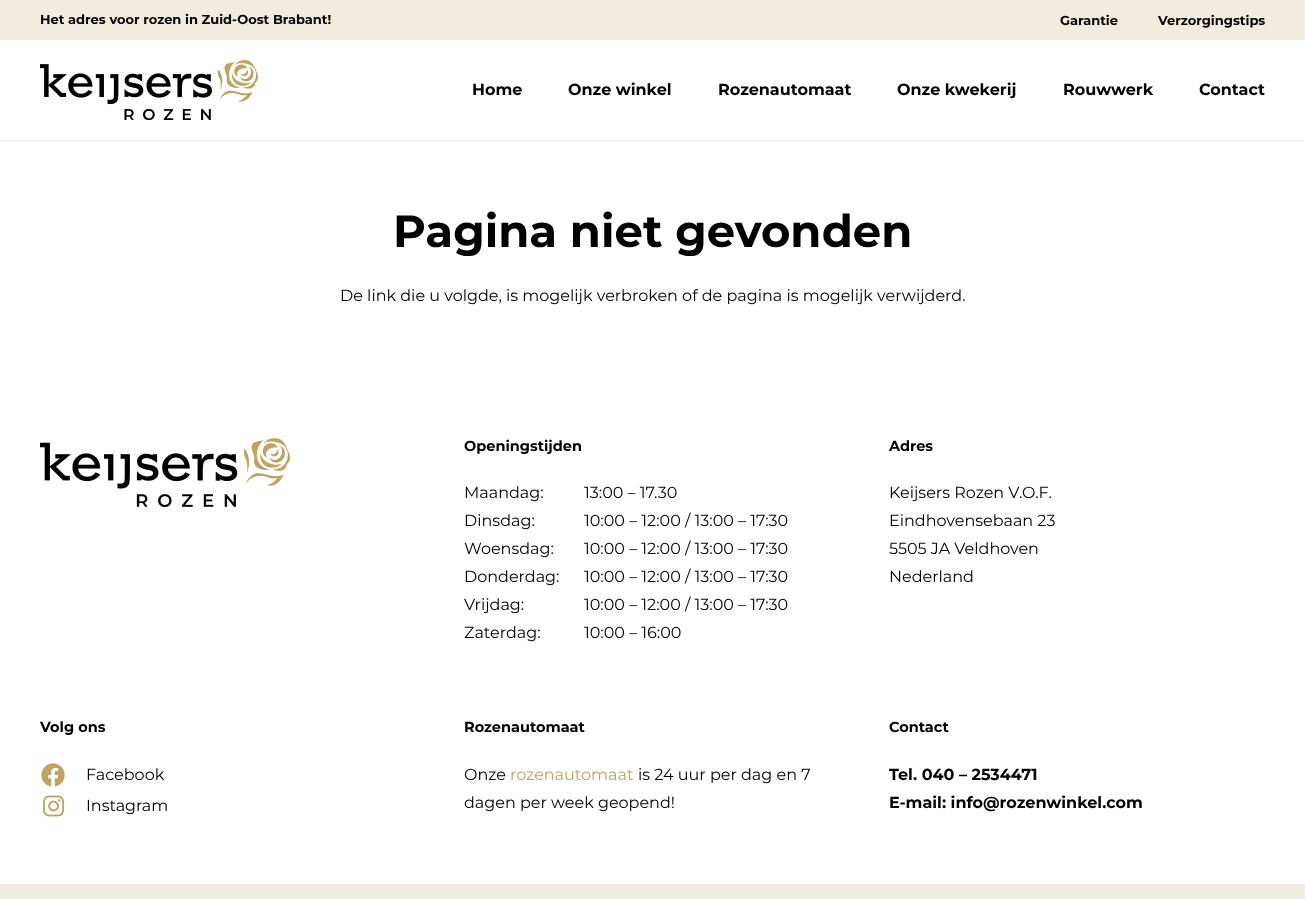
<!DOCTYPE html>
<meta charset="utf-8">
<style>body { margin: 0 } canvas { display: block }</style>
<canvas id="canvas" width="1305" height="899"></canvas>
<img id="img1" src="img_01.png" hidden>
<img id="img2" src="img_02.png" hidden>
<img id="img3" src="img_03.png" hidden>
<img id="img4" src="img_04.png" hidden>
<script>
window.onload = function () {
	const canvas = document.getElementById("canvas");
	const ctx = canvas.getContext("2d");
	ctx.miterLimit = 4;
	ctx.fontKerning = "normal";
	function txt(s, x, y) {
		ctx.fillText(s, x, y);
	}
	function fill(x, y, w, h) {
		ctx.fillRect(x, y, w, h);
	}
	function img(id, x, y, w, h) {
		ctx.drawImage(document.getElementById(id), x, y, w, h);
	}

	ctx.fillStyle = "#FFFFFF";
	fill(0, 0, 1305, 899);
	ctx.fillStyle = "#F2ECDF";
	fill(0, 0, 1305, 40);
	ctx.fillStyle = "#EBEBEB";
	fill(0, 140, 1305, 1);
	img("img1", 40, 60, 218, 60);
	img("img2", 40, 438, 250, 69);
	img("img3", 41, 763, 24, 24);
	img("img4", 43, 795, 22, 22);
	ctx.fillStyle = "#F2ECDF";
	fill(0, 884, 1305, 15);
	ctx.font = "bold 13px Montserrat";
	ctx.fillStyle = "#000000";
	txt("Het adres voor rozen in Zuid-Oost Brabant!", 40, 24);
	txt("Garantie", 1060, 25);
	txt("Verzorgingstips", 1158, 25);
	ctx.font = "bold 16px Montserrat";
	txt("Home", 472, 95);
	txt("Onze winkel", 568, 95);
	txt("Rozenautomaat", 718, 95);
	txt("Onze kwekerij", 897, 95);
	txt("Rouwwerk", 1063, 95);
	txt("Contact", 1199, 95);
	ctx.font = "bold 45px Montserrat";
	txt("Pagina niet gevonden", 393, 247);
	ctx.font = "16px Montserrat";
	txt("De link die u volgde, is mogelijk verbroken of de pagina is mogelijk verwijderd.", 340, 301);
	ctx.font = "bold 14.5px Montserrat";
	txt("Openingstijden", 464, 451);
	ctx.font = "16px Montserrat";
	txt("Maandag:", 464, 498);
	txt("13:00 – 17.30", 584, 498);
	txt("Dinsdag:", 464, 526);
	txt("10:00 – 12:00 / 13:00 – 17:30", 584, 526);
	txt("Woensdag:", 464, 554);
	txt("10:00 – 12:00 / 13:00 – 17:30", 584, 554);
	txt("Donderdag:", 464, 582);
	txt("10:00 – 12:00 / 13:00 – 17:30", 584, 582);
	txt("Vrijdag:", 464, 610);
	txt("10:00 – 12:00 / 13:00 – 17:30", 584, 610);
	txt("Zaterdag:", 464, 638);
	txt("10:00 – 16:00", 584, 638);
	ctx.font = "bold 14.5px Montserrat";
	txt("Adres", 889, 451);
	ctx.font = "16px Montserrat";
	txt("Keijsers Rozen V.O.F.", 889, 498);
	txt("Eindhovensebaan 23", 889, 526);
	txt("5505 JA Veldhoven", 889, 554);
	txt("Nederland", 889, 582);
	ctx.font = "bold 14.5px Montserrat";
	txt("Volg ons", 40, 732);
	ctx.font = "16px Montserrat";
	txt("Facebook", 86, 780);
	txt("Instagram", 86, 811);
	ctx.font = "bold 14.5px Montserrat";
	txt("Rozenautomaat", 464, 732);
	ctx.font = "16px Montserrat";
	txt("Onze", 464, 780);
	ctx.fillStyle = "#C0A362";
	txt("rozenautomaat", 510, 780);
	ctx.fillStyle = "#000000";
	txt("is 24 uur per dag en 7", 638, 780);
	txt("dagen per week geopend!", 464, 808);
	ctx.font = "bold 14.5px Montserrat";
	txt("Contact", 889, 732);
	ctx.font = "bold 16px Montserrat";
	txt("Tel. 040 – 2534471", 889, 780);
	txt("E-mail: info@rozenwinkel.com", 889, 808);
};
</script>
